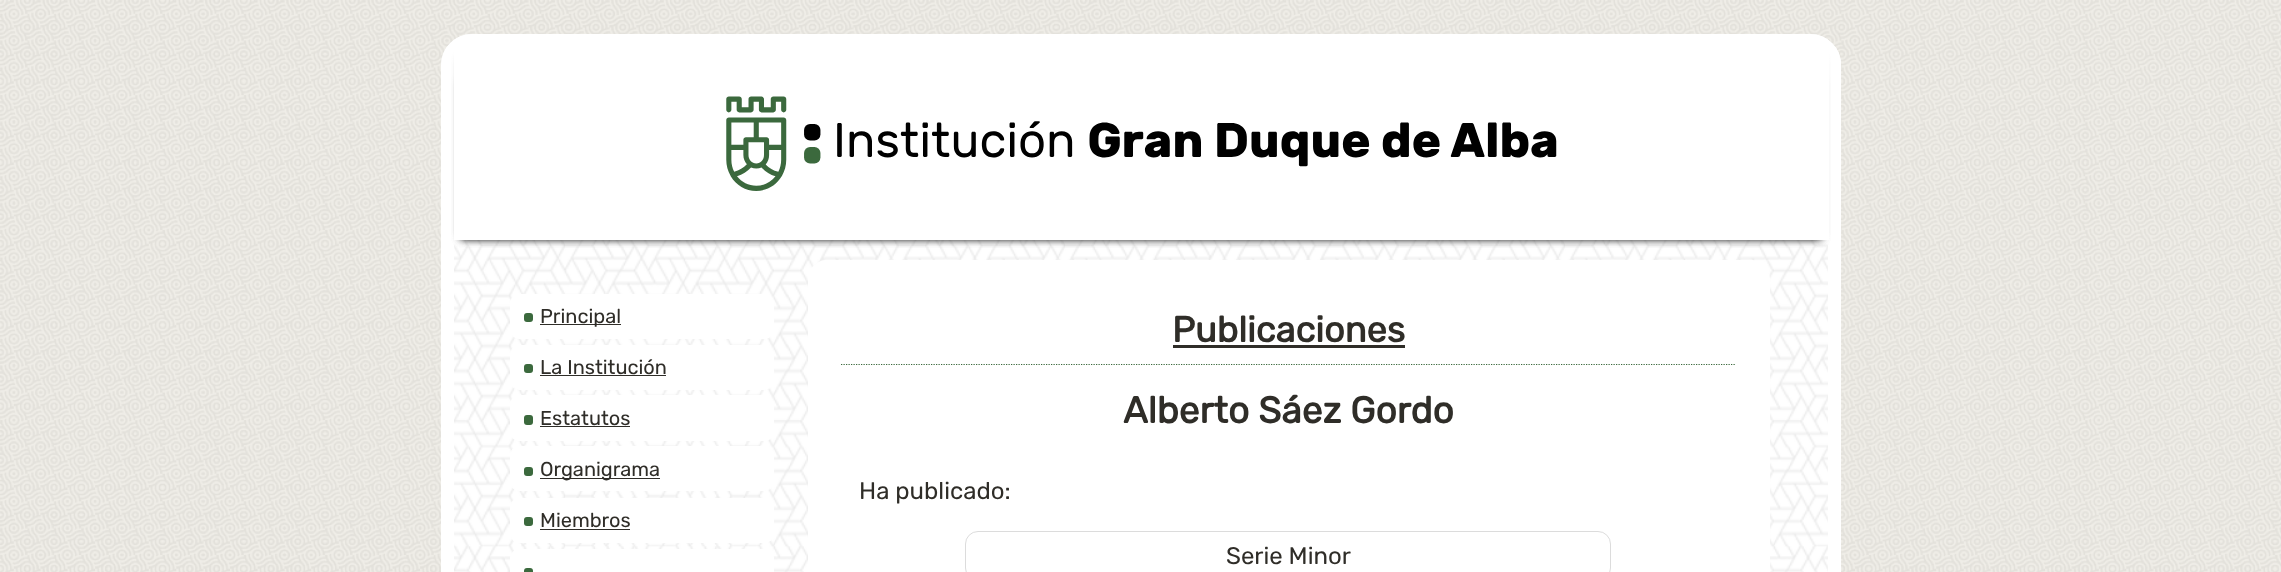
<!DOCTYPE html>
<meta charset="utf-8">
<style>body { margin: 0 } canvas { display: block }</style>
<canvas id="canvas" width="2281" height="572"></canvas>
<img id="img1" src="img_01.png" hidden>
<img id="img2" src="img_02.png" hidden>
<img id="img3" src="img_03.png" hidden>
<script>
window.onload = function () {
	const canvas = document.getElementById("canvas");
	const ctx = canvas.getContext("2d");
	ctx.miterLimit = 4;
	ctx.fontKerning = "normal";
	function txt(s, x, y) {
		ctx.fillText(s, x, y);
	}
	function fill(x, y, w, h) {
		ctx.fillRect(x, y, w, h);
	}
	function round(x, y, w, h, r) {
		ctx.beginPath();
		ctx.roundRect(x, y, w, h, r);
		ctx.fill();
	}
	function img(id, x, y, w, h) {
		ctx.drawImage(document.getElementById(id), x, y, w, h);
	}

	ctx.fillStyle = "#FFFFFF";
	fill(0, 0, 2281, 572);
	img("img1", 0, 0, 2281, 572);
	img("img2", 441, 34, 1400, 538);
	ctx.beginPath();
	ctx.roundRect(447.5, 40.5, 1387, 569, 24.5);
	ctx.strokeStyle = "#FFFFFF";
	ctx.lineWidth = 13;
	ctx.stroke();
	ctx.fillStyle = "#222222";
	ctx.filter = "blur(4px)";
	ctx.beginPath();
	ctx.rect(461, 59, 1360, 179);
	ctx.fill();
	ctx.filter = "none";
	ctx.fillStyle = "#FFFFFF";
	fill(454, 47, 1375, 21);
	ctx.fillStyle = "#222222";
	ctx.filter = "blur(4px)";
	ctx.beginPath();
	ctx.rect(461, 80, 1360, 158);
	ctx.fill();
	ctx.filter = "none";
	ctx.fillStyle = "#FFFFFF";
	fill(454, 68, 1375, 172);
	img("img3", 726, 96, 831, 95);
	round(510, 294, 264, 45, 9);
	ctx.fillStyle = "#3B693D";
	round(524, 313, 9, 9, 3);
	ctx.fillStyle = "#2F2D28";
	fill(540, 324, 81, 1);
	ctx.fillStyle = "#FFFFFF";
	ctx.beginPath();
	ctx.roundRect(510.5, 345.5, 263, 44, 8.5);
	ctx.fill();
	ctx.lineWidth = 1;
	ctx.stroke();
	ctx.fillStyle = "#3B693D";
	round(524, 364, 9, 9, 3);
	ctx.fillStyle = "#2F2D28";
	fill(540, 375, 126, 1);
	ctx.fillStyle = "#FFFFFF";
	round(510, 395, 264, 46, 9);
	ctx.fillStyle = "#3B693D";
	round(524, 415, 9, 10, 3);
	ctx.fillStyle = "#2F2D28";
	fill(540, 426, 90, 1);
	ctx.fillStyle = "#FFFFFF";
	ctx.beginPath();
	ctx.roundRect(510.5, 446.5, 263, 44, 8.5);
	ctx.fill();
	ctx.stroke();
	ctx.fillStyle = "#3B693D";
	round(524, 467, 9, 9, 3);
	ctx.fillStyle = "#2F2D28";
	fill(540, 478, 120, 1);
	ctx.fillStyle = "#FFFFFF";
	round(510, 498, 264, 45, 9);
	ctx.fillStyle = "#3B693D";
	round(524, 517, 9, 9, 3);
	ctx.fillStyle = "#2F2D28";
	fill(540, 529, 90, 1);
	ctx.fillStyle = "#FFFFFF";
	round(510, 549, 264, 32, 9);
	ctx.fillStyle = "#3B693D";
	round(524, 568, 9, 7, 3);
	ctx.fillStyle = "#FFFFFF";
	round(808, 260, 962, 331, 19);
	ctx.beginPath();
	ctx.moveTo(841, 364.5);
	ctx.lineTo(1735, 364.5);
	ctx.strokeStyle = "#3B693D";
	ctx.lineWidth = 1.2;
	ctx.setLineDash([1.25, 1.25]);
	ctx.stroke();
	ctx.fillStyle = "#2F2D28";
	fill(1173, 345, 232, 3);
	ctx.beginPath();
	ctx.roundRect(965.5, 531.5, 645, 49, 12.5);
	ctx.strokeStyle = "#DCDCDC";
	ctx.lineWidth = 1;
	ctx.setLineDash([]);
	ctx.stroke();
	ctx.font = "20px Rubik";
	txt("Principal", 540, 323);
	txt("La Institución", 540, 374);
	txt("Estatutos", 540, 425);
	txt("Organigrama", 540, 476);
	txt("Miembros", 540, 527);
	ctx.font = "bold 36px Rubik";
	txt("Publicaciones", 1172, 342);
	ctx.font = "bold 37px Rubik";
	txt("Alberto Sáez Gordo", 1123, 423);
	ctx.font = "24px Rubik";
	txt("Ha publicado:", 859, 499);
	txt("Serie Minor", 1226, 564);
};
</script>
